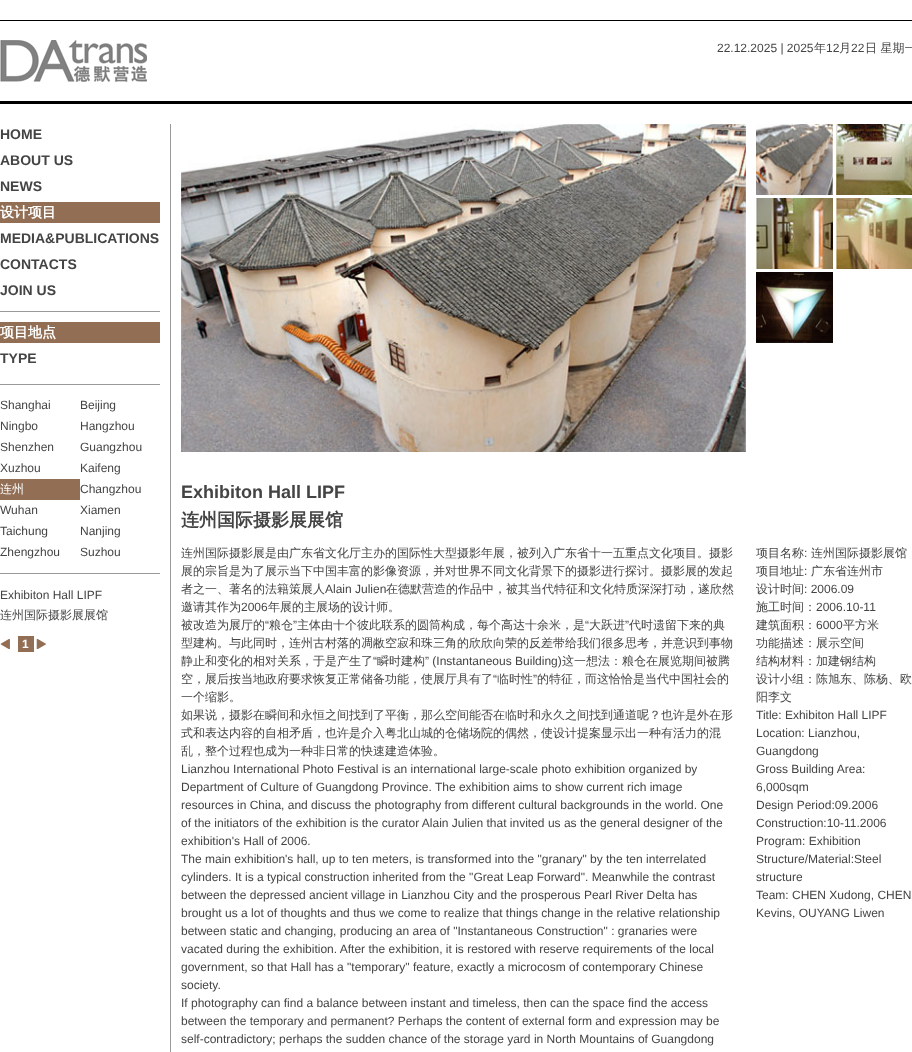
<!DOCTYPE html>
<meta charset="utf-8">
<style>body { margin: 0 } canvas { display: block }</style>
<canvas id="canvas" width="912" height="1052"></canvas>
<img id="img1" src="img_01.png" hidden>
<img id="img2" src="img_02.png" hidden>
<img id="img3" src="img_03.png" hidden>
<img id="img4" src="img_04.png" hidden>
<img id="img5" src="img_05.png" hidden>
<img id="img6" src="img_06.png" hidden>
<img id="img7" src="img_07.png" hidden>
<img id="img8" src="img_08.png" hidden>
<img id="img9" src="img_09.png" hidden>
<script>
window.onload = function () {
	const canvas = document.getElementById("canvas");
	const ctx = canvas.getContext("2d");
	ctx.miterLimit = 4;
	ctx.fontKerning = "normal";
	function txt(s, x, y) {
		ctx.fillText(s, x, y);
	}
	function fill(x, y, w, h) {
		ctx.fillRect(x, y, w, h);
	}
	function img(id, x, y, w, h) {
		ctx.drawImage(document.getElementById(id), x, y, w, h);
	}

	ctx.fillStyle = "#FFFFFF";
	fill(0, 0, 912, 1052);
	ctx.fillStyle = "#000000";
	fill(0, 20, 912, 1);
	fill(0, 101, 912, 3);
	img("img1", 0, 40, 147, 42);
	ctx.fillStyle = "#926E54";
	fill(0, 202, 160, 21);
	ctx.fillStyle = "#999999";
	fill(0, 311, 160, 1);
	ctx.fillStyle = "#926E54";
	fill(0, 322, 160, 21);
	ctx.fillStyle = "#999999";
	fill(0, 384, 160, 1);
	ctx.fillStyle = "#926E54";
	fill(0, 479, 80, 21);
	ctx.fillStyle = "#999999";
	fill(0, 573, 160, 1);
	img("img2", 0, 639, 10, 10);
	ctx.fillStyle = "#926E54";
	fill(18, 636, 16, 16);
	img("img3", 36, 639, 10, 10);
	ctx.fillStyle = "#999999";
	fill(170, 124, 1, 928);
	img("img4", 181, 124, 565, 328);
	img("img5", 756, 124, 77, 71);
	img("img6", 836, 124, 76, 71);
	img("img7", 756, 198, 77, 71);
	img("img8", 836, 198, 76, 71);
	img("img9", 756, 272, 77, 71);
	ctx.font = "12px Liberation Sans";
	ctx.fillStyle = "#444444";
	txt("22.12.2025 | 2025", 717, 52);
	ctx.font = "500 12px WenQuanYi Zen Hei";
	txt("年", 814, 52);
	ctx.font = "12px Liberation Sans";
	txt("12", 826, 52);
	ctx.font = "500 12px WenQuanYi Zen Hei";
	txt("月", 839, 52);
	ctx.font = "12px Liberation Sans";
	txt("22", 851, 52);
	ctx.font = "500 12px WenQuanYi Zen Hei";
	txt("日 星期一", 865, 52);
	ctx.font = "bold 14px Liberation Sans";
	txt("HOME", 0, 139);
	txt("ABOUT US", 0, 165);
	txt("NEWS", 0, 191);
	ctx.font = "bold 14px WenQuanYi Zen Hei";
	ctx.fillStyle = "#FFFFFF";
	txt("设计项目", 0, 217);
	ctx.font = "bold 14px Liberation Sans";
	ctx.fillStyle = "#444444";
	txt("MEDIA&PUBLICATIONS", 0, 243);
	txt("CONTACTS", 0, 269);
	txt("JOIN US", 0, 295);
	ctx.font = "bold 14px WenQuanYi Zen Hei";
	ctx.fillStyle = "#FFFFFF";
	txt("项目地点", 0, 337);
	ctx.font = "bold 14px Liberation Sans";
	ctx.fillStyle = "#444444";
	txt("TYPE", 0, 363);
	ctx.font = "12px Liberation Sans";
	txt("Shanghai", 0, 409);
	txt("Beijing", 80, 409);
	txt("Ningbo", 0, 430);
	txt("Hangzhou", 80, 430);
	txt("Shenzhen", 0, 451);
	txt("Guangzhou", 80, 451);
	txt("Xuzhou", 0, 472);
	txt("Kaifeng", 80, 472);
	ctx.font = "500 12px WenQuanYi Zen Hei";
	ctx.fillStyle = "#FFFFFF";
	txt("连州", 0, 493);
	ctx.font = "12px Liberation Sans";
	ctx.fillStyle = "#444444";
	txt("Changzhou", 80, 493);
	txt("Wuhan", 0, 514);
	txt("Xiamen", 80, 514);
	txt("Taichung", 0, 535);
	txt("Nanjing", 80, 535);
	txt("Zhengzhou", 0, 556);
	txt("Suzhou", 80, 556);
	txt("Exhibiton Hall LIPF", 0, 599);
	ctx.font = "500 12px WenQuanYi Zen Hei";
	txt("连州国际摄影展展馆", 0, 619);
	ctx.font = "bold 12px Liberation Sans";
	ctx.fillStyle = "#FFFFFF";
	txt("1", 22, 648);
	ctx.font = "bold 18px Liberation Sans";
	ctx.fillStyle = "#444444";
	txt("Exhibiton Hall LIPF", 181, 498);
	ctx.font = "bold 18px WenQuanYi Zen Hei";
	txt("连州国际摄影展展馆", 181, 526);
	ctx.font = "500 12px WenQuanYi Zen Hei";
	txt("连州国际摄影展是由广东省文化厅主办的国际性大型摄影年展，被列入广东省十一五重点文化项目。摄影", 181, 557);
	txt("展的宗旨是为了展示当下中国丰富的影像资源，并对世界不同文化背景下的摄影进行探讨。摄影展的发起", 181, 575);
	txt("者之一、著名的法籍策展人", 181, 593);
	ctx.font = "12px Liberation Sans";
	txt("Alain Julien", 325, 593);
	ctx.font = "500 12px WenQuanYi Zen Hei";
	txt("在德默营造的作品中，被其当代特征和文化特质深深打动，遂欣然", 386, 593);
	txt("邀请其作为", 181, 611);
	ctx.font = "12px Liberation Sans";
	txt("2006", 241, 611);
	ctx.font = "500 12px WenQuanYi Zen Hei";
	txt("年展的主展场的设计师。", 268, 611);
	txt("被改造为展厅的", 181, 629);
	ctx.font = "12px Liberation Sans";
	txt("“", 265, 629);
	ctx.font = "500 12px WenQuanYi Zen Hei";
	txt("粮仓", 269, 629);
	ctx.font = "12px Liberation Sans";
	txt("”", 293, 629);
	ctx.font = "500 12px WenQuanYi Zen Hei";
	txt("主体由十个彼此联系的圆筒构成，每个高达十余米，是", 297, 629);
	ctx.font = "12px Liberation Sans";
	txt("“", 585, 629);
	ctx.font = "500 12px WenQuanYi Zen Hei";
	txt("大跃进", 589, 629);
	ctx.font = "12px Liberation Sans";
	txt("”", 625, 629);
	ctx.font = "500 12px WenQuanYi Zen Hei";
	txt("代时遗留下来的典", 629, 629);
	txt("型建构。与此同时，连州古村落的凋敝空寂和珠三角的欣欣向荣的反差带给我们很多思考，并意识到事物", 181, 647);
	txt("静止和变化的相对关系，于是产生了", 181, 665);
	ctx.font = "12px Liberation Sans";
	txt("“", 373, 665);
	ctx.font = "500 12px WenQuanYi Zen Hei";
	txt("瞬时建构", 377, 665);
	ctx.font = "12px Liberation Sans";
	txt("” (Instantaneous Building)", 425, 665);
	ctx.font = "500 12px WenQuanYi Zen Hei";
	txt("这一想法：粮仓在展览期间被腾", 562, 665);
	txt("空，展后按当地政府要求恢复正常储备功能，使展厅具有了", 181, 683);
	ctx.font = "12px Liberation Sans";
	txt("“", 493, 683);
	ctx.font = "500 12px WenQuanYi Zen Hei";
	txt("临时性", 497, 683);
	ctx.font = "12px Liberation Sans";
	txt("”", 533, 683);
	ctx.font = "500 12px WenQuanYi Zen Hei";
	txt("的特征，而这恰恰是当代中国社会的", 537, 683);
	txt("一个缩影。", 181, 701);
	txt("如果说，摄影在瞬间和永恒之间找到了平衡，那么空间能否在临时和永久之间找到通道呢？也许是外在形", 181, 719);
	txt("式和表达内容的自相矛盾，也许是介入粤北山城的仓储场院的偶然，使设计提案显示出一种有活力的混", 181, 737);
	txt("乱，整个过程也成为一种非日常的快速建造体验。", 181, 755);
	ctx.font = "12px Liberation Sans";
	txt("Lianzhou International Photo Festival is an international large-scale photo exhibition organized by", 181, 773);
	txt("Department of Culture of Guangdong Province. The exhibition aims to show current rich image", 181, 791);
	txt("resources in China, and discuss the photography from different cultural backgrounds in the world. One", 181, 809);
	txt("of the initiators of the exhibition is the curator Alain Julien that invited us as the general designer of the", 181, 827);
	txt("exhibition's Hall of 2006.", 181, 845);
	txt("The main exhibition's hall, up to ten meters, is transformed into the \"granary\" by the ten interrelated", 181, 863);
	txt("cylinders. It is a typical construction inherited from the \"Great Leap Forward\". Meanwhile the contrast", 181, 881);
	txt("between the depressed ancient village in Lianzhou City and the prosperous Pearl River Delta has", 181, 899);
	txt("brought us a lot of thoughts and thus we come to realize that things change in the relative relationship", 181, 917);
	txt("between static and changing, producing an area of \"Instantaneous Construction\" : granaries were", 181, 935);
	txt("vacated during the exhibition. After the exhibition, it is restored with reserve requirements of the local", 181, 953);
	txt("government, so that Hall has a \"temporary\" feature, exactly a microcosm of contemporary Chinese", 181, 971);
	txt("society.", 181, 989);
	txt("If photography can find a balance between instant and timeless, then can the space find the access", 181, 1007);
	txt("between the temporary and permanent? Perhaps the content of external form and expression may be", 181, 1025);
	txt("self-contradictory; perhaps the sudden chance of the storage yard in North Mountains of Guangdong", 181, 1043);
	ctx.font = "500 12px WenQuanYi Zen Hei";
	txt("项目名称", 756, 557);
	ctx.font = "12px Liberation Sans";
	txt(":", 804, 557);
	ctx.font = "500 12px WenQuanYi Zen Hei";
	txt("连州国际摄影展馆", 811, 557);
	txt("项目地址", 756, 575);
	ctx.font = "12px Liberation Sans";
	txt(":", 804, 575);
	ctx.font = "500 12px WenQuanYi Zen Hei";
	txt("广东省连州市", 811, 575);
	txt("设计时间", 756, 593);
	ctx.font = "12px Liberation Sans";
	txt(": 2006.09", 804, 593);
	ctx.font = "500 12px WenQuanYi Zen Hei";
	txt("施工时间：", 756, 611);
	ctx.font = "12px Liberation Sans";
	txt("2006.10-11", 816, 611);
	ctx.font = "500 12px WenQuanYi Zen Hei";
	txt("建筑面积：", 756, 629);
	ctx.font = "12px Liberation Sans";
	txt("6000", 816, 629);
	ctx.font = "500 12px WenQuanYi Zen Hei";
	txt("平方米", 843, 629);
	txt("功能描述：展示空间", 756, 647);
	txt("结构材料：加建钢结构", 756, 665);
	txt("设计小组：陈旭东、陈杨、欧", 756, 683);
	txt("阳李文", 756, 701);
	ctx.font = "12px Liberation Sans";
	txt("Title: Exhibiton Hall LIPF", 756, 719);
	txt("Location: Lianzhou,", 756, 737);
	txt("Guangdong", 756, 755);
	txt("Gross Building Area:", 756, 773);
	txt("6,000sqm", 756, 791);
	txt("Design Period:09.2006", 756, 809);
	txt("Construction:10-11.2006", 756, 827);
	txt("Program: Exhibition", 756, 845);
	txt("Structure/Material:Steel", 756, 863);
	txt("structure", 756, 881);
	txt("Team: CHEN Xudong, CHEN", 756, 899);
	txt("Kevins, OUYANG Liwen", 756, 917);
};
</script>
